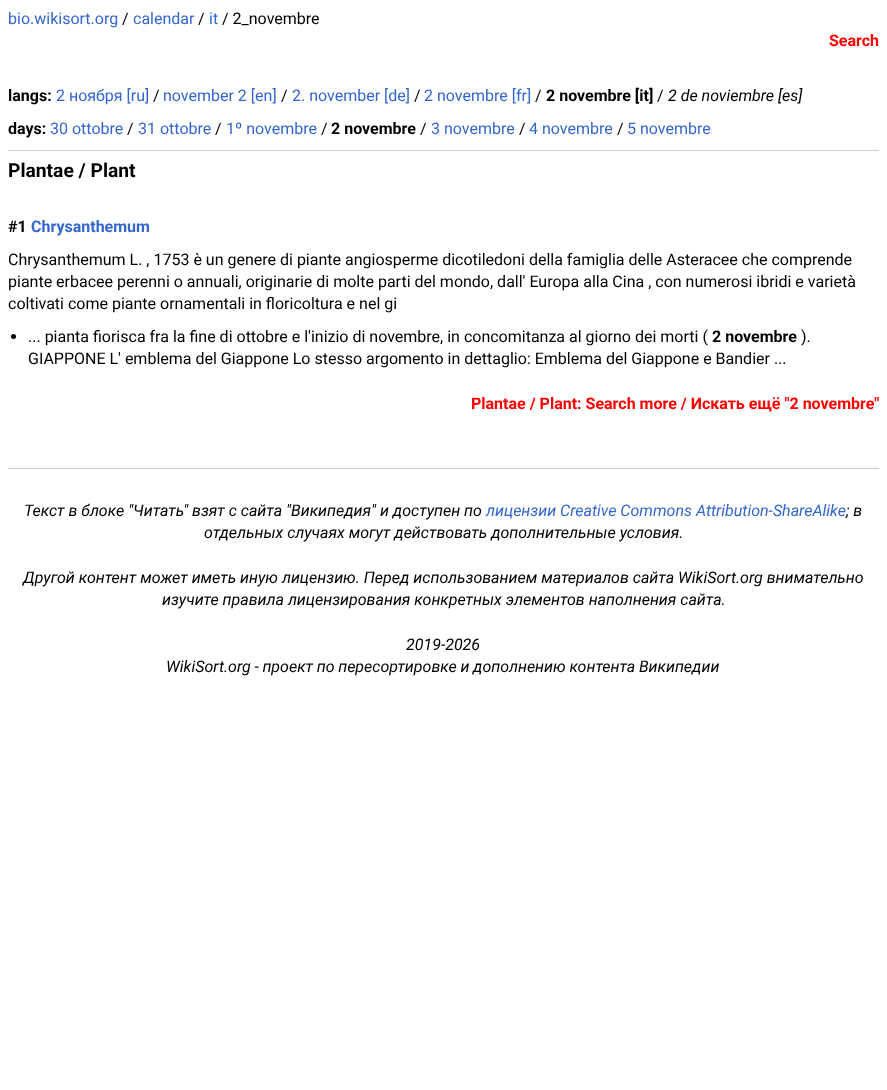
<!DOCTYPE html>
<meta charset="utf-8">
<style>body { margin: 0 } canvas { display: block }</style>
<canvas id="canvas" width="887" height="1090"></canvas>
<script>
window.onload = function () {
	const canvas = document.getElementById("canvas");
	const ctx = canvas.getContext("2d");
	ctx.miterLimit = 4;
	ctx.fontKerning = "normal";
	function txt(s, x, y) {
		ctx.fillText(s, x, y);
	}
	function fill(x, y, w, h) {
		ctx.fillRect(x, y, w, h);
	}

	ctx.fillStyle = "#FFFFFF";
	fill(0, 0, 887, 1090);
	ctx.fillStyle = "#C8CCD1";
	fill(8, 150, 871, 1);
	ctx.fillStyle = "#000000";
	ctx.beginPath();
	ctx.arc(13.5, 336.5, 2.5, 0, Math.PI * 2);
	ctx.fill();
	ctx.fillStyle = "#C8CCD1";
	fill(8, 468, 871, 1);
	ctx.font = "16px Roboto";
	ctx.fillStyle = "#3366CC";
	txt("bio.wikisort.org", 8, 24);
	ctx.fillStyle = "#000000";
	txt("/", 122, 24);
	ctx.fillStyle = "#3366CC";
	txt("calendar", 133, 24);
	ctx.fillStyle = "#000000";
	txt("/", 198, 24);
	ctx.fillStyle = "#3366CC";
	txt("it", 209, 24);
	ctx.fillStyle = "#000000";
	txt("/ 2_novembre", 222, 24);
	ctx.font = "bold 16px Roboto";
	ctx.fillStyle = "#FF0000";
	txt("Search", 829, 46);
	ctx.fillStyle = "#000000";
	txt("langs:", 8, 101);
	ctx.font = "16px Roboto";
	ctx.fillStyle = "#3366CC";
	txt("2 ноября [ru]", 56, 101);
	ctx.fillStyle = "#000000";
	txt("/", 153, 101);
	ctx.fillStyle = "#3366CC";
	txt("november 2 [en]", 163, 101);
	ctx.fillStyle = "#000000";
	txt("/", 281, 101);
	ctx.fillStyle = "#3366CC";
	txt("2. november [de]", 292, 101);
	ctx.fillStyle = "#000000";
	txt("/", 414, 101);
	ctx.fillStyle = "#3366CC";
	txt("2 novembre [fr]", 424, 101);
	ctx.fillStyle = "#000000";
	txt("/", 535, 101);
	ctx.font = "bold 16px Roboto";
	txt("2 novembre [it]", 546, 101);
	ctx.font = "16px Roboto";
	txt("/", 657, 101);
	ctx.font = "italic 16px Roboto";
	txt("2 de noviembre [es]", 668, 101);
	ctx.font = "bold 16px Roboto";
	txt("days:", 8, 134);
	ctx.font = "16px Roboto";
	ctx.fillStyle = "#3366CC";
	txt("30 ottobre", 50, 134);
	ctx.fillStyle = "#000000";
	txt("/", 127, 134);
	ctx.fillStyle = "#3366CC";
	txt("31 ottobre", 138, 134);
	ctx.fillStyle = "#000000";
	txt("/", 215, 134);
	ctx.fillStyle = "#3366CC";
	txt("1º novembre", 226, 134);
	ctx.fillStyle = "#000000";
	txt("/", 321, 134);
	ctx.font = "bold 16px Roboto";
	txt("2 novembre", 331, 134);
	ctx.font = "16px Roboto";
	txt("/", 420, 134);
	ctx.fillStyle = "#3366CC";
	txt("3 novembre", 431, 134);
	ctx.fillStyle = "#000000";
	txt("/", 519, 134);
	ctx.fillStyle = "#3366CC";
	txt("4 novembre", 529, 134);
	ctx.fillStyle = "#000000";
	txt("/", 617, 134);
	ctx.fillStyle = "#3366CC";
	txt("5 novembre", 627, 134);
	ctx.font = "bold 19.25px Roboto";
	ctx.fillStyle = "#000000";
	txt("Plantae / Plant", 8, 177);
	ctx.font = "bold 16px Roboto";
	txt("#1", 8, 232);
	ctx.fillStyle = "#3366CC";
	txt("Chrysanthemum", 31, 232);
	ctx.font = "16px Roboto";
	ctx.fillStyle = "#000000";
	txt("Chrysanthemum L. , 1753 è un genere di piante angiosperme dicotiledoni della famiglia delle Asteracee che comprende", 8, 265);
	txt("piante erbacee perenni o annuali, originarie di molte parti del mondo, dall' Europa alla Cina , con numerosi ibridi e varietà", 8, 287);
	txt("coltivati come piante ornamentali in floricoltura e nel gi", 8, 309);
	txt("... pianta fiorisca fra la fine di ottobre e l'inizio di novembre, in concomitanza al giorno dei morti (", 28, 342);
	ctx.font = "bold 16px Roboto";
	txt("2 novembre", 712, 342);
	ctx.font = "16px Roboto";
	txt(").", 801, 342);
	txt("GIAPPONE L' emblema del Giappone Lo stesso argomento in dettaglio: Emblema del Giappone e Bandier ...", 28, 364);
	ctx.font = "bold 16px Roboto";
	ctx.fillStyle = "#FF0000";
	txt("Plantae / Plant: Search more / Искать ещё \"2 novembre\"", 471, 409);
	ctx.font = "italic 16px Roboto";
	ctx.fillStyle = "#000000";
	txt("Текст в блоке \"Читать\" взят с сайта \"Википедия\" и доступен по", 24, 516);
	ctx.fillStyle = "#3366CC";
	txt("лицензии Creative Commons Attribution-ShareAlike", 486, 516);
	ctx.fillStyle = "#000000";
	txt("; в", 846, 516);
	txt("отдельных случаях могут действовать дополнительные условия.", 204, 538);
	txt("Другой контент может иметь иную лицензию. Перед использованием материалов сайта WikiSort.org внимательно", 23, 583);
	txt("изучите правила лицензирования конкретных элементов наполнения сайта.", 162, 605);
	txt("2019-2026", 406, 650);
	ctx.wordSpacing = "-0.25px";
	txt("WikiSort.org - проект по пересортировке и дополнению контента Википедии", 166, 672);
};
</script>
